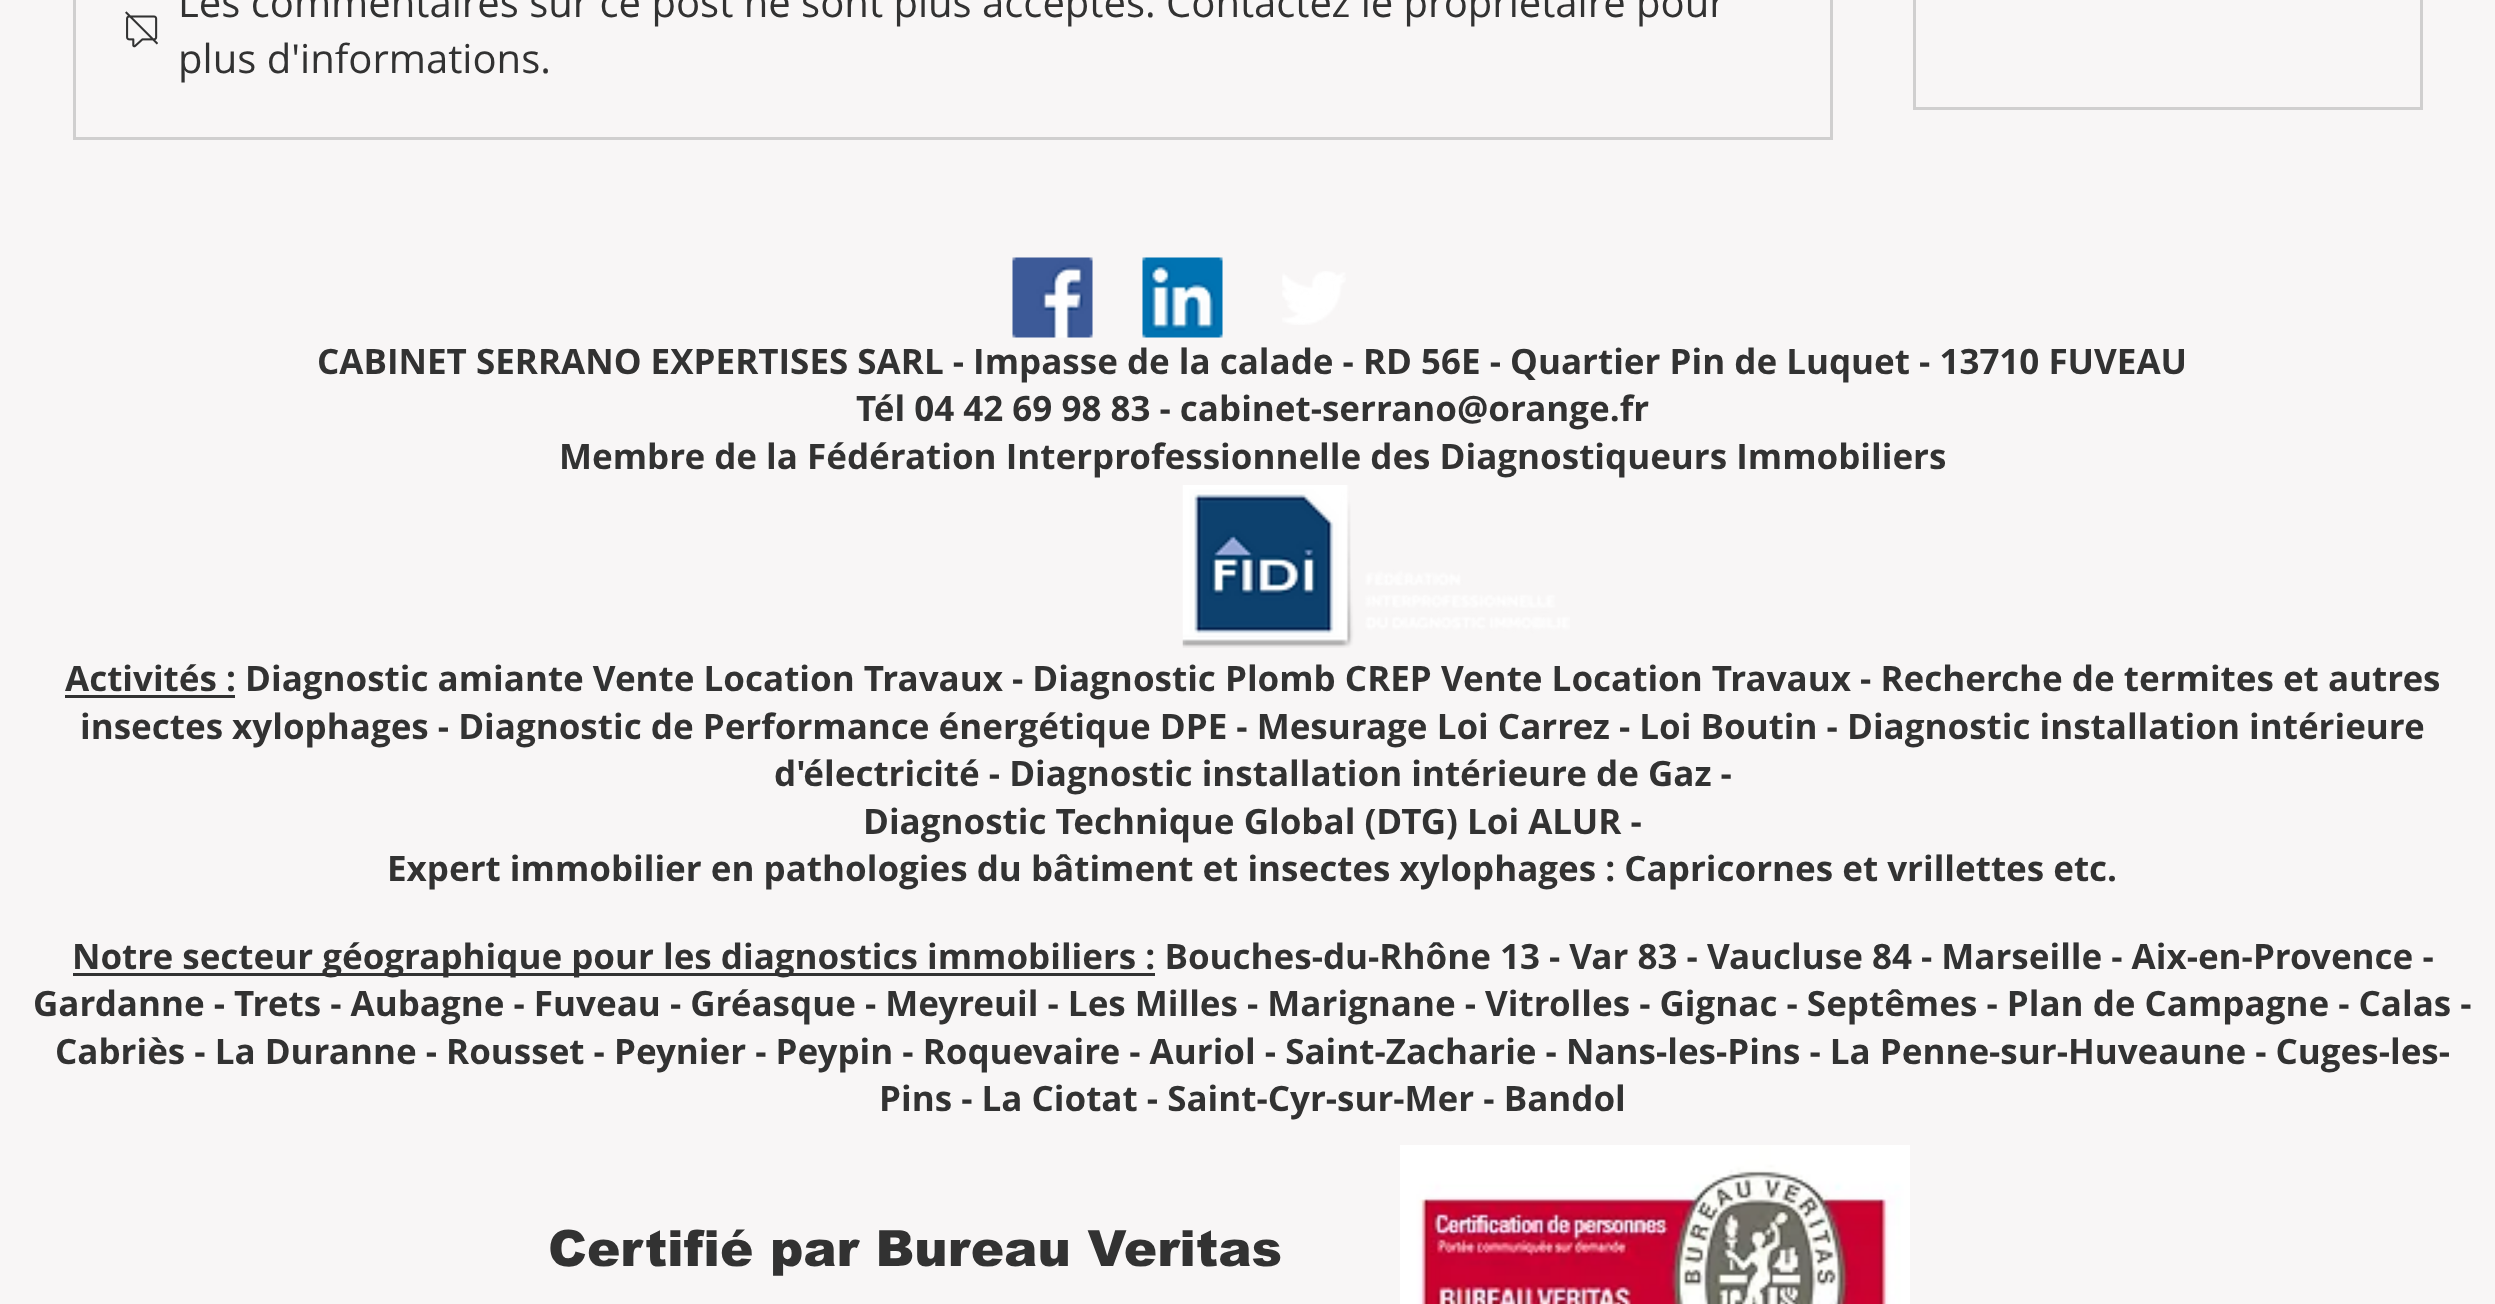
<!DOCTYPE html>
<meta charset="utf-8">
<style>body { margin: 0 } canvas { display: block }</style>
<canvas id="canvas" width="2495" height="1304"></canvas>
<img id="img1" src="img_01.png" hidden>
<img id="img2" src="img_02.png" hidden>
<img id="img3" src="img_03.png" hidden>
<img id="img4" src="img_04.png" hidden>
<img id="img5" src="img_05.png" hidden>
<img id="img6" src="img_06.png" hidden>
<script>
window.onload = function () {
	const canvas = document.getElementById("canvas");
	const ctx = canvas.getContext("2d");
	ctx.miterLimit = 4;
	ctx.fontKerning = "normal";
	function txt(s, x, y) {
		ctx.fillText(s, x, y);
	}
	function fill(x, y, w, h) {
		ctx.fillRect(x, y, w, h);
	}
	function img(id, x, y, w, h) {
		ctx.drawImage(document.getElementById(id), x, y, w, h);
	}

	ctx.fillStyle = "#F8F6F6";
	fill(0, 0, 2495, 1304);
	ctx.strokeStyle = "#D0CFCF";
	ctx.lineWidth = 3;
	ctx.strokeRect(74.5, -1.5, 1757, 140);
	img("img1", 125, 11, 33, 37);
	ctx.strokeRect(1914.5, -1.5, 507, 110);
	img("img2", 1012, 257, 81, 81);
	img("img3", 1142, 257, 81, 81);
	img("img4", 1282, 271, 64, 54);
	ctx.fillStyle = "#323232";
	fill(65, 695, 170, 3);
	fill(73, 973, 1082, 3);
	img("img5", 1182, 485, 388, 163);
	img("img6", 1400, 1145, 510, 159);
	ctx.font = "40px Open Sans";
	txt("Les commentaires sur ce post ne sont plus acceptés. Contactez le propriétaire pour", 178, 17);
	txt("plus d'informations.", 178, 73);
	ctx.font = "bold 35px Open Sans";
	txt("CABINET SERRANO EXPERTISES SARL - Impasse de la calade - RD 56E - Quartier Pin de Luquet - 13710 FUVEAU", 317, 374);
	txt("Tél 04 42 69 98 83 - cabinet-serrano@orange.fr", 856, 421);
	txt("Membre de la Fédération Interprofessionnelle des Diagnostiqueurs Immobiliers", 559, 469);
	txt("Activités : Diagnostic amiante Vente Location Travaux - Diagnostic Plomb CREP Vente Location Travaux - Recherche de termites et autres", 65, 691);
	txt("insectes xylophages - Diagnostic de Performance énergétique DPE - Mesurage Loi Carrez - Loi Boutin - Diagnostic installation intérieure", 80, 739);
	txt("d'électricité - Diagnostic installation intérieure de Gaz -", 774, 786);
	txt("Diagnostic Technique Global (DTG) Loi ALUR -", 863, 834);
	txt("Expert immobilier en pathologies du bâtiment et insectes xylophages : Capricornes et vrillettes etc.", 387, 881);
	txt("Notre secteur géographique pour les diagnostics immobiliers : Bouches-du-Rhône 13 - Var 83 - Vaucluse 84 - Marseille - Aix-en-Provence -", 72, 969);
	txt("Gardanne - Trets - Aubagne - Fuveau - Gréasque - Meyreuil - Les Milles - Marignane - Vitrolles - Gignac - Septêmes - Plan de Campagne - Calas -", 33, 1016);
	txt("Cabriès - La Duranne - Rousset - Peynier - Peypin - Roquevaire - Auriol - Saint-Zacharie - Nans-les-Pins - La Penne-sur-Huveaune - Cuges-les-", 55, 1064);
	txt("Pins - La Ciotat - Saint-Cyr-sur-Mer - Bandol", 879, 1111);
	ctx.font = "900 50px arial";
	txt("Certifié par Bureau Veritas", 548, 1266);
};
</script>
